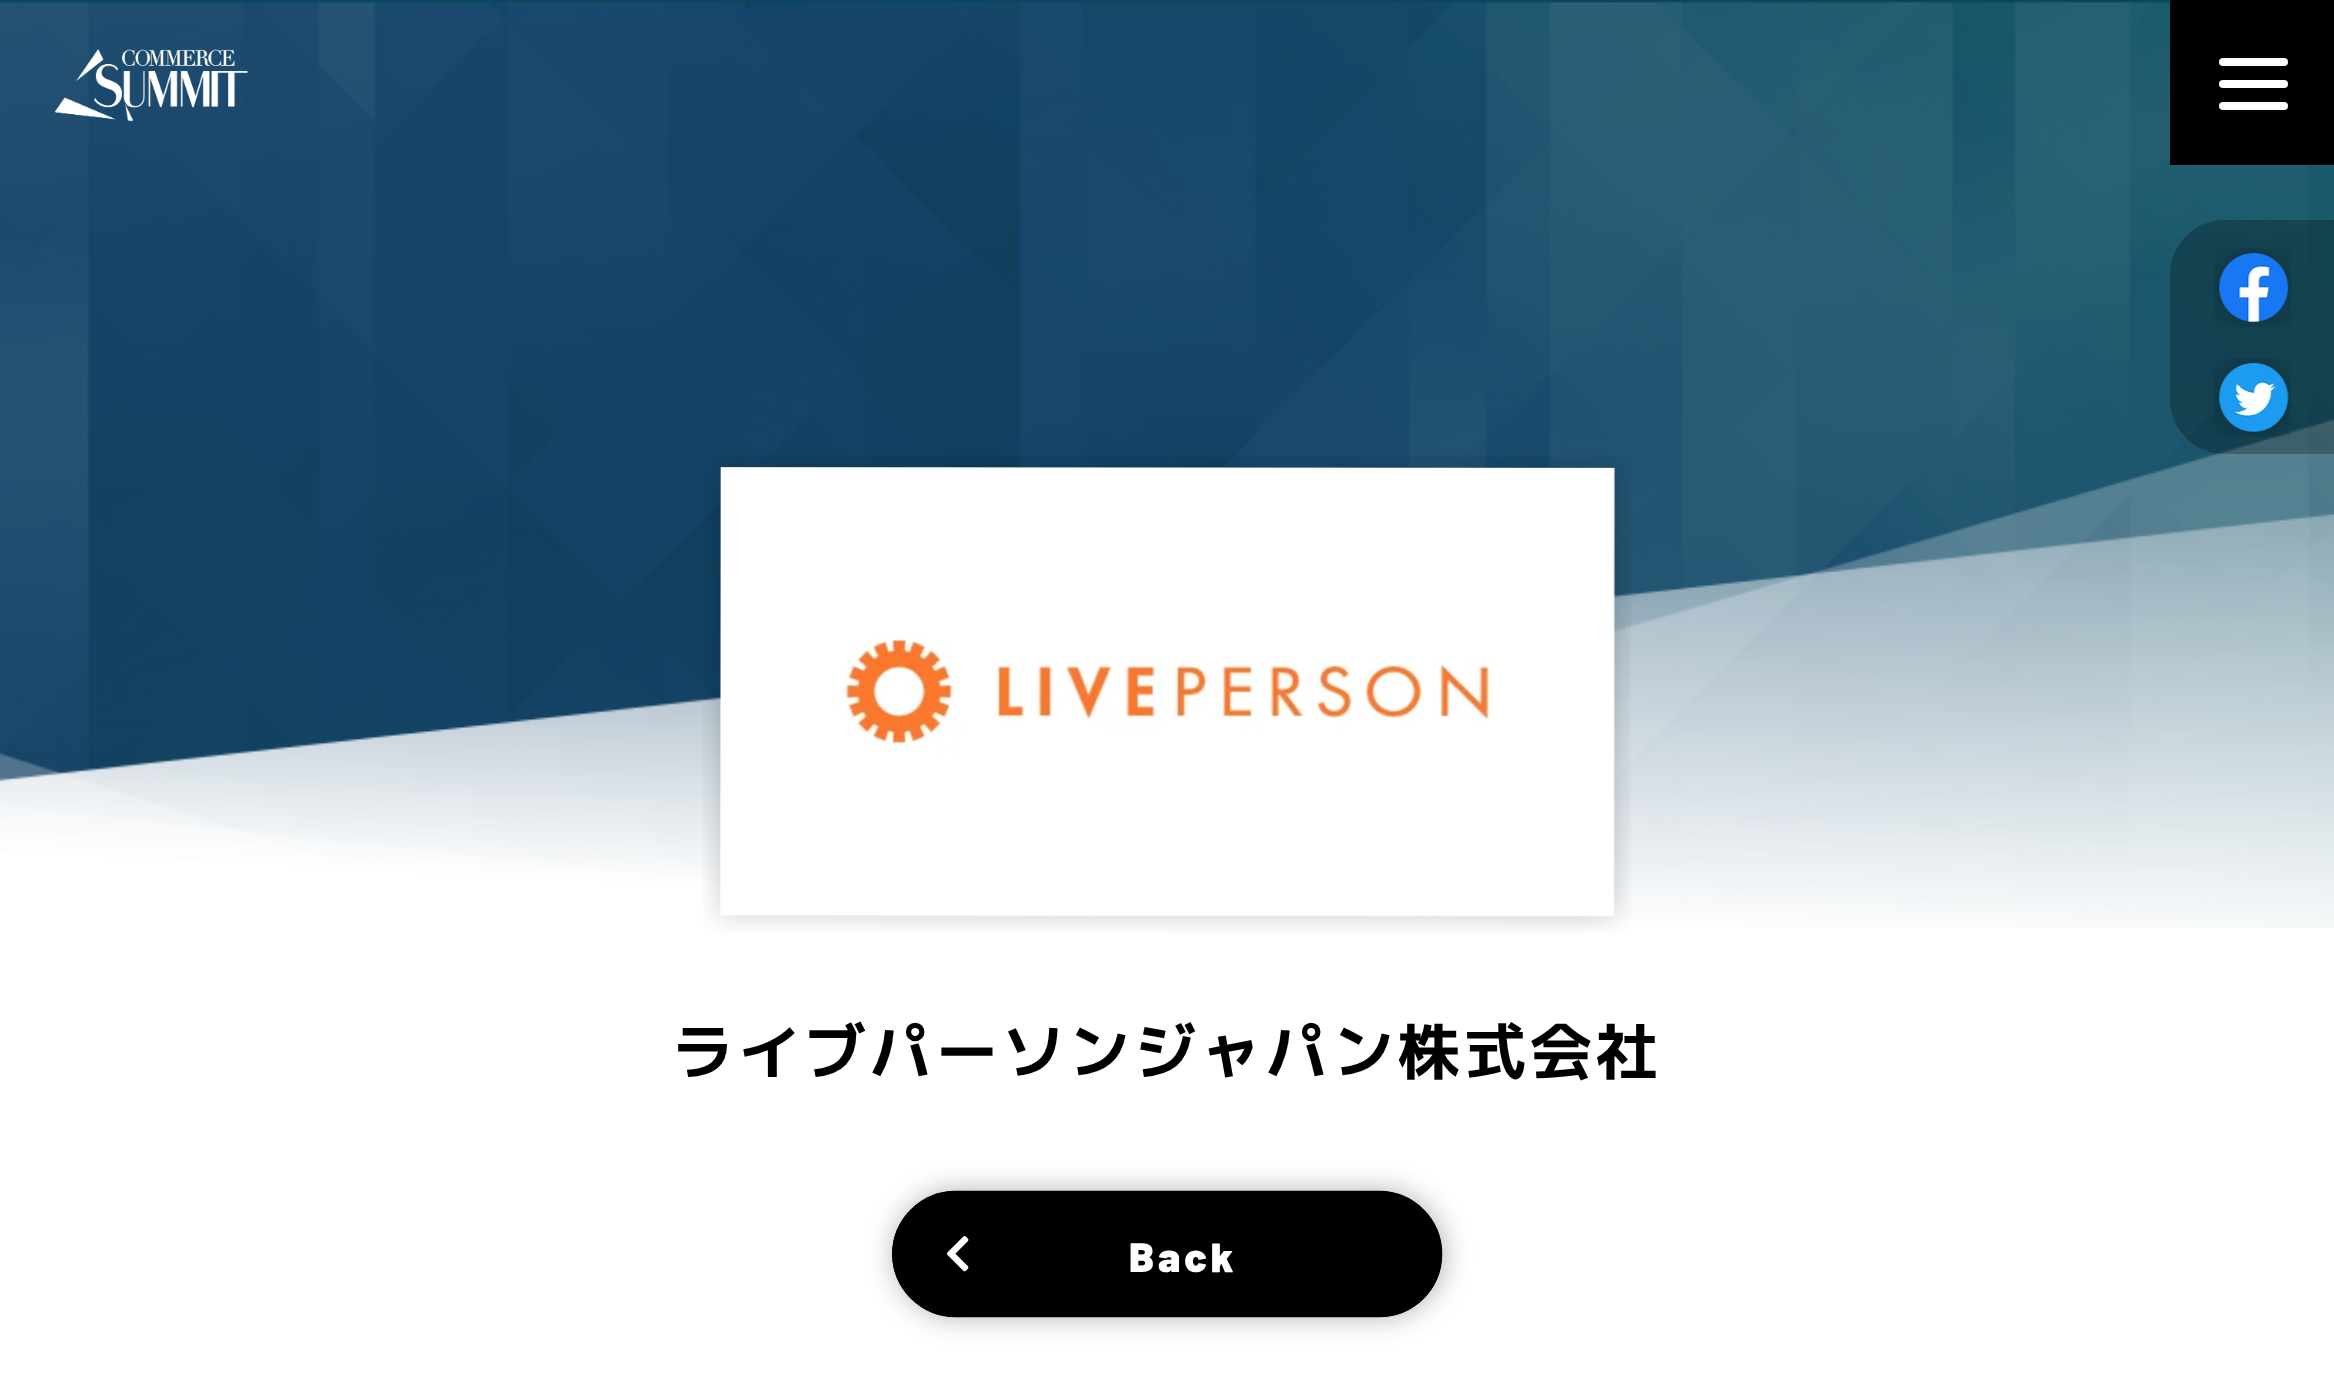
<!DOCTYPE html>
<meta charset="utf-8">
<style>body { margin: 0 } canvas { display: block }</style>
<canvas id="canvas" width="2334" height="1379"></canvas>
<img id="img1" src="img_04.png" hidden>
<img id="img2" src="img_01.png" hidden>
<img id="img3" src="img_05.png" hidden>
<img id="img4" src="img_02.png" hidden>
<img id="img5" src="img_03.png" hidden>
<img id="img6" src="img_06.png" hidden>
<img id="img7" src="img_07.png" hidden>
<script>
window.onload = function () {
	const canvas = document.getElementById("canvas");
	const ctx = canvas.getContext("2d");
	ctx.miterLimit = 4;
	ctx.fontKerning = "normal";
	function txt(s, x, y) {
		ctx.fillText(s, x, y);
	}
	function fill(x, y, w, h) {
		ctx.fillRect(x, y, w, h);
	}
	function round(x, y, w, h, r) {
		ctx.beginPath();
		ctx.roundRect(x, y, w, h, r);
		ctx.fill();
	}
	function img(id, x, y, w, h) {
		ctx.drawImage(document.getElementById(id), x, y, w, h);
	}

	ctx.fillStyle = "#FFFFFF";
	fill(0, 0, 2334, 1379);
	img("img1", 0, 0, 2334, 935);
	img("img2", 55, 49, 193, 73);
	ctx.fillStyle = "#000000";
	fill(2170, 0, 164, 165);
	ctx.fillStyle = "#FFFFFF";
	round(2219, 80, 69, 8, 4);
	round(2219, 58, 69, 8, 4);
	round(2219, 102, 69, 8, 4);
	img("img3", 0, 419, 2334, 516);
	ctx.fillStyle = "rgba(0, 0, 0, 0.25)";
	ctx.beginPath();
	ctx.moveTo(2225, 220);
	ctx.lineTo(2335, 220);
	ctx.lineTo(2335, 454);
	ctx.lineTo(2225, 454);
	ctx.bezierCurveTo(2194.5, 454, 2170, 429.5, 2170, 399);
	ctx.lineTo(2170, 275);
	ctx.bezierCurveTo(2170, 244.5, 2194.5, 220, 2225, 220);
	ctx.closePath();
	ctx.fill();
	img("img4", 2214, 248, 77, 79);
	img("img5", 2214, 358, 77, 79);
	img("img6", 703, 455, 928, 478);
	ctx.fillStyle = "rgba(0, 0, 0, 0.3)";
	ctx.filter = "blur(14px)";
	ctx.beginPath();
	ctx.roundRect(894, 1191, 550, 126, 63);
	ctx.fill();
	ctx.filter = "none";
	ctx.fillStyle = "#000000";
	ctx.beginPath();
	ctx.moveTo(956, 1191);
	ctx.lineTo(1379, 1191);
	ctx.bezierCurveTo(1414, 1191, 1442, 1219, 1442, 1254);
	ctx.bezierCurveTo(1442, 1289, 1414, 1317, 1379, 1317);
	ctx.lineTo(956, 1317);
	ctx.bezierCurveTo(921, 1317, 892, 1289, 892, 1254);
	ctx.bezierCurveTo(892, 1219, 921, 1191, 956, 1191);
	ctx.closePath();
	ctx.fill();
	ctx.beginPath();
	ctx.moveTo(955.5, 1193.5);
	ctx.lineTo(1379, 1193.5);
	ctx.bezierCurveTo(1412.5, 1193.5, 1439.5, 1221, 1439.5, 1254);
	ctx.bezierCurveTo(1439.5, 1287.5, 1412.5, 1314.5, 1379, 1314.5);
	ctx.lineTo(955.5, 1314.5);
	ctx.bezierCurveTo(922, 1314.5, 895, 1287, 895, 1254);
	ctx.bezierCurveTo(895, 1220.5, 922.5, 1193.5, 955.5, 1193.5);
	ctx.closePath();
	ctx.strokeStyle = "#000000";
	ctx.lineWidth = 5.5;
	ctx.stroke();
	img("img7", 947, 1236, 22, 36);
	ctx.letterSpacing = "4.1px";
	ctx.font = "bold 61.9px 'M PLUS 1p'";
	txt("ライブパーソンジャパン株式会社", 672, 1074);
	ctx.letterSpacing = "4px";
	ctx.font = "900 41px Barlow";
	ctx.fillStyle = "#FFFFFF";
	ctx.save();
	ctx.translate(1129, 1272);
	ctx.rotate(0.1 * Math.PI / 180);
	ctx.fillText("Back", 0, 0);
	ctx.restore();
};
</script>
